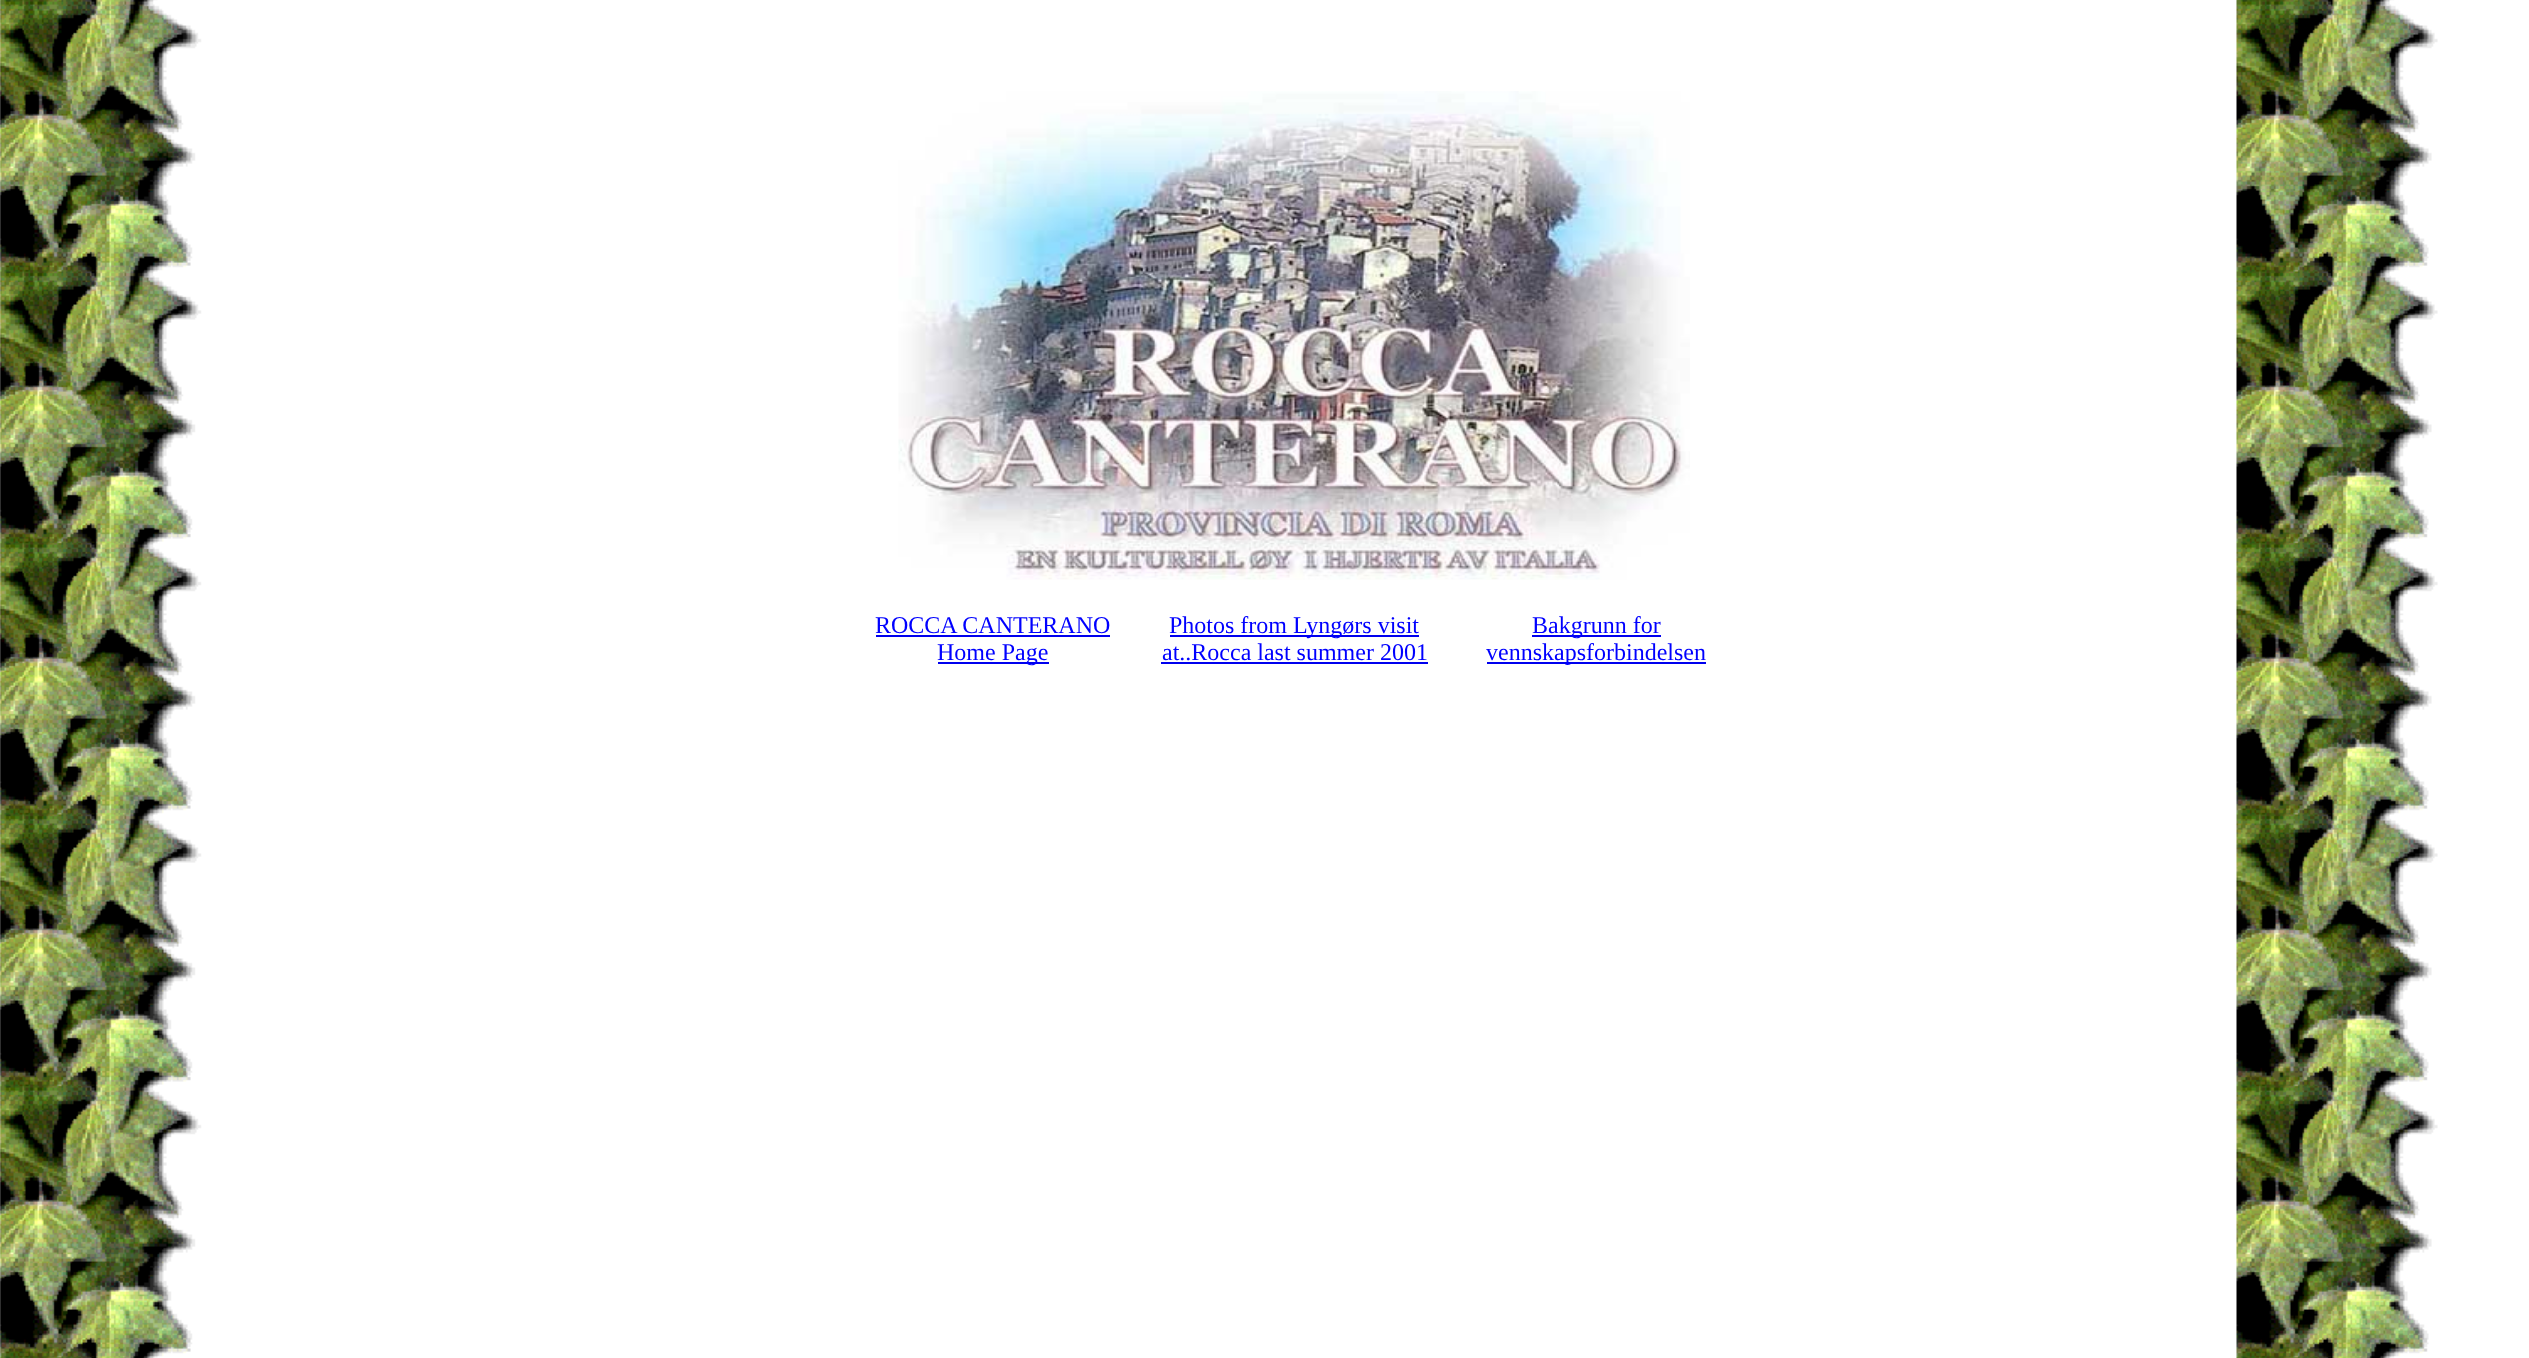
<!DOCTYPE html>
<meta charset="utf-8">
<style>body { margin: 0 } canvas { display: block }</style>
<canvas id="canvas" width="2529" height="1358"></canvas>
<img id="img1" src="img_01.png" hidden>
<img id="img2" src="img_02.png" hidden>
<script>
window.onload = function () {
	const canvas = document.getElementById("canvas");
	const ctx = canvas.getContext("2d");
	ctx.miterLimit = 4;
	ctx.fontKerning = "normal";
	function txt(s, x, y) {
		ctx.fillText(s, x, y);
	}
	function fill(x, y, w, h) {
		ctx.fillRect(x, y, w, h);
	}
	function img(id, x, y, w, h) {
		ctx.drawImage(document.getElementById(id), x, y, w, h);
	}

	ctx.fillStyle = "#FFFFFF";
	fill(0, 0, 2529, 1358);
	img("img1", 0, 0, 2438, 1358);
	img("img2", 898, 91, 792, 489);
	ctx.fillStyle = "#0000EE";
	fill(876, 635, 234, 2);
	fill(938, 662, 111, 2);
	fill(1170, 635, 249, 2);
	fill(1161, 662, 267, 2);
	fill(1532, 635, 129, 2);
	fill(1487, 662, 219, 2);
	ctx.font = "24px Liberation Serif";
	ctx.fillStyle = "#0000FF";
	txt("ROCCA CANTERANO", 875, 633);
	txt("Home Page", 937, 660);
	txt("Photos from Lyngørs visit", 1169, 633);
	txt("at..Rocca last summer 2001", 1162, 660);
	txt("Bakgrunn for", 1532, 633);
	txt("vennskapsforbindelsen", 1486, 660);
};
</script>
